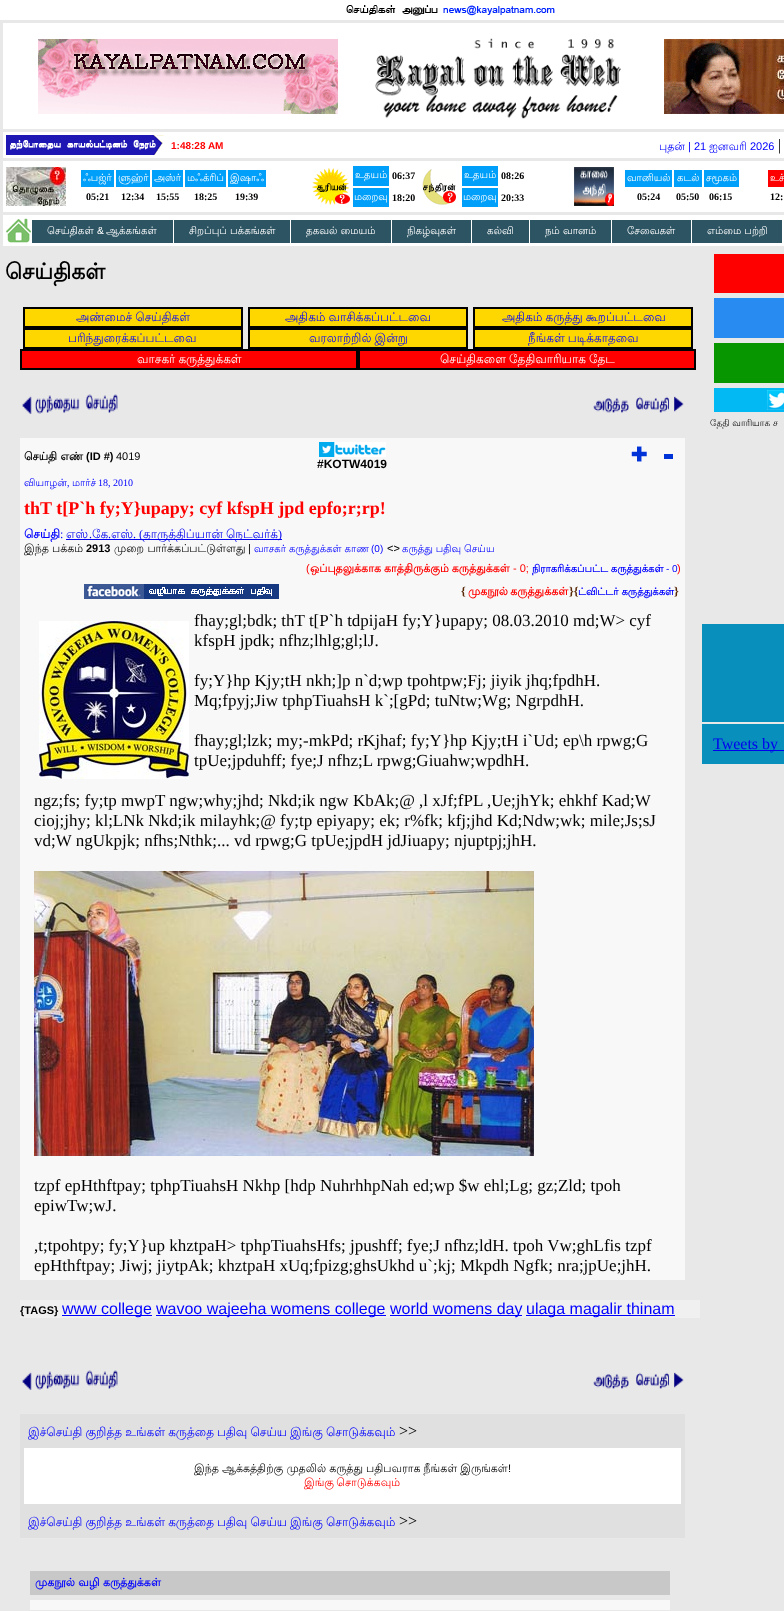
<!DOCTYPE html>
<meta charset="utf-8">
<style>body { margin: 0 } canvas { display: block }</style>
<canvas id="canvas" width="784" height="1611"></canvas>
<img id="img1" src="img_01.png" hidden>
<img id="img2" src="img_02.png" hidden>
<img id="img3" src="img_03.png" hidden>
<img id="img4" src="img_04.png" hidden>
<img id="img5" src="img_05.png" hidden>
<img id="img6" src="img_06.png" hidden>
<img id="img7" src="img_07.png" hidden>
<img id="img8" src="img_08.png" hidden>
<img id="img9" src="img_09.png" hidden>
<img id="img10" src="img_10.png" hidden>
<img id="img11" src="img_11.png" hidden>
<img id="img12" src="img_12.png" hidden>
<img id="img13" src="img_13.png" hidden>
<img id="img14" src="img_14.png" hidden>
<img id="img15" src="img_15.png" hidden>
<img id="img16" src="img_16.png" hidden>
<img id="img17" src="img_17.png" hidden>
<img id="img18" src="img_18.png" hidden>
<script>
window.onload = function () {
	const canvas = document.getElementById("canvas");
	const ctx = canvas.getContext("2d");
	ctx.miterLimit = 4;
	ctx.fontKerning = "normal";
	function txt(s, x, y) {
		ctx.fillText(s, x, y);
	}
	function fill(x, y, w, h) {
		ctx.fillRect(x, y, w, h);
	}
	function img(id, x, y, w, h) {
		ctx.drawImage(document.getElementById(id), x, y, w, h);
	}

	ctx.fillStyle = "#FFFFFF";
	fill(0, 0, 784, 1611);
	img("img1", 346, 5, 209, 11);
	ctx.fillStyle = "#E8E8E8";
	fill(0, 20, 784, 1591);
	ctx.fillStyle = "#FFFFFF";
	fill(3, 23, 781, 106);
	img("img2", 38, 39, 300, 75);
	img("img3", 375, 38, 246, 81);
	img("img4", 664, 39, 120, 75);
	fill(3, 132, 781, 26);
	img("img5", 6, 135, 158, 20);
	fill(3, 161, 781, 51);
	img("img6", 6, 167, 60, 39);
	ctx.fillStyle = "#009FF9";
	fill(81, 170, 33, 17);
	fill(116, 170, 34, 17);
	fill(152, 170, 31, 17);
	fill(185, 170, 41, 17);
	fill(228, 170, 38, 17);
	img("img7", 312, 168, 38, 37);
	fill(353, 166, 36, 20);
	img("img8", 422, 169, 34, 36);
	fill(462, 166, 36, 20);
	fill(353, 188, 36, 19);
	fill(462, 188, 36, 19);
	img("img9", 574, 167, 40, 39);
	fill(625, 170, 47, 17);
	fill(674, 170, 28, 17);
	fill(704, 170, 35, 17);
	ctx.fillStyle = "#FF0000";
	fill(768, 170, 16, 17);
	ctx.fillStyle = "#FFFFFF";
	fill(3, 215, 781, 31);
	img("img10", 6, 218, 25, 25);
	ctx.fillStyle = "#2C5463";
	fill(32, 220, 141, 23);
	fill(174, 220, 116, 23);
	fill(291, 220, 100, 23);
	fill(392, 220, 79, 23);
	fill(472, 220, 57, 23);
	fill(530, 220, 81, 23);
	fill(612, 220, 79, 23);
	fill(692, 220, 90, 23);
	ctx.fillStyle = "#FFD700";
	ctx.beginPath();
	ctx.rect(24, 308, 218, 19);
	ctx.fill();
	ctx.strokeStyle = "#000000";
	ctx.lineWidth = 2;
	ctx.stroke();
	ctx.beginPath();
	ctx.rect(249, 308, 218, 19);
	ctx.fill();
	ctx.stroke();
	ctx.beginPath();
	ctx.rect(474, 308, 218, 19);
	ctx.fill();
	ctx.stroke();
	ctx.beginPath();
	ctx.rect(24, 329, 218, 19);
	ctx.fill();
	ctx.stroke();
	ctx.beginPath();
	ctx.rect(249, 329, 218, 19);
	ctx.fill();
	ctx.stroke();
	ctx.beginPath();
	ctx.rect(474, 329, 218, 19);
	ctx.fill();
	ctx.stroke();
	ctx.fillStyle = "#FF0000";
	ctx.beginPath();
	ctx.rect(21, 350, 336, 19);
	ctx.fill();
	ctx.stroke();
	ctx.beginPath();
	ctx.rect(359, 350, 336, 19);
	ctx.fill();
	ctx.stroke();
	img("img11", 22, 394, 96, 20);
	img("img12", 593, 396, 91, 17);
	ctx.fillStyle = "#F8F8F8";
	fill(20, 438, 665, 842);
	img("img13", 319, 442, 67, 15);
	img("img14", 631, 446, 16, 16);
	ctx.fillStyle = "#0033D7";
	fill(664, 454, 9, 5);
	ctx.fillStyle = "#0000EE";
	fill(66, 539, 216, 1);
	img("img15", 84, 584, 195, 15);
	img("img16", 39, 621, 150, 158);
	img("img17", 34, 871, 500, 285);
	ctx.fillStyle = "#F0F0F0";
	fill(20, 1300, 680, 18);
	ctx.fillStyle = "#0000FF";
	fill(62, 1315, 90, 1);
	fill(156, 1315, 230, 1);
	fill(390, 1315, 132, 1);
	fill(526, 1315, 149, 1);
	img("img11", 22, 1370, 96, 20);
	img("img12", 593, 1372, 91, 17);
	ctx.fillStyle = "#E0E0E0";
	fill(20, 1414, 665, 124);
	ctx.fillStyle = "#FFFFFF";
	fill(24, 1448, 657, 56);
	ctx.fillStyle = "#C8C8C8";
	fill(30, 1571, 640, 24);
	ctx.fillStyle = "#F8F8F8";
	fill(30, 1600, 640, 10);
	ctx.fillStyle = "#FF0000";
	fill(714, 254, 70, 39);
	ctx.fillStyle = "#278BF2";
	fill(714, 298, 70, 40);
	ctx.fillStyle = "#079500";
	fill(714, 343, 70, 40);
	ctx.fillStyle = "#02B9F4";
	fill(714, 388, 70, 24);
	img("img18", 767, 390, 17, 20);
	ctx.fillStyle = "#088FBC";
	fill(702, 624, 82, 98);
	fill(702, 724, 82, 40);
	ctx.fillStyle = "#0000EE";
	fill(713, 750, 71, 1);
	ctx.font = "bold 10px Liberation Sans";
	ctx.fillStyle = "#FF0000";
	txt("1:48:28 AM", 171, 149);
	ctx.font = "11px Lohit Tamil";
	ctx.fillStyle = "#0000FF";
	txt("புதன்", 659, 150);
	ctx.font = "11px Liberation Sans";
	txt("| 21", 688, 150);
	ctx.font = "11px Lohit Tamil";
	txt("ஐனவரி", 709, 150);
	ctx.font = "11px Liberation Sans";
	txt("2026", 750, 150);
	ctx.font = "16px Liberation Serif";
	ctx.fillStyle = "#000000";
	txt("|", 778, 150);
	ctx.font = "10px Lohit Tamil";
	ctx.fillStyle = "#FFFFFF";
	txt("ஃபஜ்ர்", 83, 181);
	txt("ளுஹ்ர்", 118, 181);
	txt("அஸ்ர்", 154, 181);
	txt("மஃக்ரிப்", 187, 181);
	txt("இஷாஃ", 230, 181);
	ctx.font = "bold 10px Liberation Serif";
	ctx.fillStyle = "#000000";
	txt("05:21", 86, 200);
	txt("12:34", 121, 200);
	txt("15:55", 156, 200);
	txt("18:25", 194, 200);
	txt("19:39", 235, 200);
	ctx.font = "10px Lohit Tamil";
	ctx.fillStyle = "#FFFFFF";
	txt("உதயம்", 355, 178);
	ctx.font = "bold 10px Liberation Serif";
	ctx.fillStyle = "#000000";
	txt("06:37", 392, 179);
	ctx.font = "10px Lohit Tamil";
	ctx.fillStyle = "#FFFFFF";
	txt("உதயம்", 464, 178);
	ctx.font = "bold 10px Liberation Serif";
	ctx.fillStyle = "#000000";
	txt("08:26", 501, 179);
	ctx.font = "10px Lohit Tamil";
	ctx.fillStyle = "#FFFFFF";
	txt("மறைவு", 354, 200);
	ctx.font = "bold 10px Liberation Serif";
	ctx.fillStyle = "#000000";
	txt("18:20", 392, 201);
	ctx.font = "10px Lohit Tamil";
	ctx.fillStyle = "#FFFFFF";
	txt("மறைவு", 463, 200);
	ctx.font = "bold 10px Liberation Serif";
	ctx.fillStyle = "#000000";
	txt("20:33", 501, 201);
	ctx.font = "10px Lohit Tamil";
	ctx.fillStyle = "#FFFFFF";
	txt("வானியல்", 627, 181);
	txt("கடல்", 677, 181);
	txt("சமூகம்", 706, 181);
	ctx.font = "bold 10px Liberation Serif";
	ctx.fillStyle = "#000000";
	txt("05:24", 637, 200);
	txt("05:50", 676, 200);
	txt("06:15", 709, 200);
	ctx.font = "10px Lohit Tamil";
	ctx.fillStyle = "#FFFFFF";
	txt("உச்", 770, 181);
	ctx.font = "bold 10px Liberation Serif";
	ctx.fillStyle = "#000000";
	txt("12:", 770, 200);
	ctx.font = "10.25px Lohit Tamil";
	ctx.fillStyle = "#FFFFFF";
	txt("செய்திகள்", 47, 234);
	ctx.font = "10.25px Liberation Sans";
	txt("&", 97, 234);
	ctx.font = "10.25px Lohit Tamil";
	txt("ஆக்கங்கள்", 106, 234);
	txt("சிறப்புப் பக்கங்கள்", 189, 234);
	txt("தகவல் மையம்", 306, 234);
	txt("நிகழ்வுகள்", 407, 234);
	txt("கல்வி", 487, 234);
	txt("நம் வானம்", 545, 234);
	txt("சேவைகள்", 627, 234);
	txt("எம்மை பற்றி", 707, 234);
	ctx.font = "bold 22px Lohit Tamil";
	ctx.fillStyle = "#000000";
	txt("செய்திகள்", 5, 279);
	ctx.wordSpacing = "-0.5px";
	ctx.font = "12px Lohit Tamil";
	ctx.fillStyle = "#0000FF";
	txt("அண்மைச் செய்திகள்", 76, 321);
	txt("அதிகம் வாசிக்கப்பட்டவை", 285, 321);
	txt("அதிகம் கருத்து கூறப்பட்டவை", 502, 321);
	ctx.wordSpacing = "0px";
	txt("பரிந்துரைக்கப்பட்டவை", 68, 342);
	ctx.wordSpacing = "-0.5px";
	txt("வரலாற்றில் இன்று", 309, 342);
	txt("நீங்கள் படிக்காதவை", 528, 342);
	ctx.fillStyle = "#FFFFFF";
	txt("வாசகர் கருத்துக்கள்", 137, 363);
	txt("செய்திகளை தேதிவாரியாக தேட", 440, 363);
	ctx.wordSpacing = "0px";
	ctx.font = "bold 11px Lohit Tamil";
	ctx.fillStyle = "#000000";
	txt("செய்தி எண்", 24, 460);
	ctx.font = "bold 11px Liberation Sans";
	txt("(ID #)", 86, 460);
	ctx.font = "11px Liberation Sans";
	txt("4019", 116, 460);
	ctx.font = "bold 12px Liberation Sans";
	txt("#KOTW4019", 317, 468);
	ctx.font = "10px Lohit Tamil";
	ctx.fillStyle = "#0000FF";
	txt("வியாழன்", 24, 486);
	ctx.font = "10px Liberation Serif";
	txt(",", 67, 486);
	ctx.font = "10px Lohit Tamil";
	txt("மார்ச்", 72, 486);
	ctx.font = "10px Liberation Serif";
	txt("18, 2010", 98, 486);
	ctx.font = "bold 18px Liberation Serif";
	ctx.fillStyle = "#FF0000";
	txt("thT t[P`h fy;Y}upapy; cyf kfspH jpd epfo;r;rp!", 24, 514);
	ctx.font = "bold 12px Lohit Tamil";
	ctx.fillStyle = "#0000FF";
	txt("செய்தி", 24, 538);
	ctx.font = "12px Liberation Serif";
	txt(":", 60, 538);
	ctx.font = "12px Lohit Tamil";
	ctx.fillStyle = "#0000EE";
	txt("எஸ்", 66, 538);
	ctx.font = "12px Liberation Serif";
	txt(".", 89, 538);
	ctx.font = "12px Lohit Tamil";
	txt("கே", 92, 538);
	ctx.font = "12px Liberation Serif";
	txt(".", 108, 538);
	ctx.font = "12px Lohit Tamil";
	txt("எஸ்", 111, 538);
	ctx.font = "12px Liberation Serif";
	txt(". (", 133, 538);
	ctx.font = "12px Lohit Tamil";
	txt("தாருத்திப்யான்", 143, 538);
	txt("நெட்வர்க்", 226, 538);
	ctx.font = "12px Liberation Serif";
	txt(")", 278, 538);
	ctx.wordSpacing = "-0.25px";
	ctx.font = "11px Lohit Tamil";
	ctx.fillStyle = "#000000";
	txt("இந்த பக்கம்", 24, 552);
	ctx.wordSpacing = "0px";
	ctx.font = "bold 11px Liberation Sans";
	txt("2913", 86, 552);
	ctx.font = "11px Lohit Tamil";
	txt("முறை பார்க்கப்பட்டுள்ளது", 114, 552);
	ctx.font = "11px Liberation Sans";
	txt("|", 248, 552);
	ctx.font = "10px Lohit Tamil";
	ctx.fillStyle = "#0000FF";
	txt("வாசகர் கருத்துக்கள் காண", 254, 552);
	ctx.font = "10px Liberation Sans";
	txt("(0)", 371, 552);
	ctx.font = "11px Liberation Sans";
	ctx.fillStyle = "#000000";
	txt("<>", 387, 552);
	ctx.font = "10px Lohit Tamil";
	ctx.fillStyle = "#0000FF";
	txt("கருத்து பதிவு செய்ய", 402, 552);
	ctx.font = "11px Liberation Sans";
	ctx.fillStyle = "#FF0000";
	txt("(", 306, 572);
	ctx.wordSpacing = "-0.25px";
	ctx.font = "bold 11px Lohit Tamil";
	txt("ஒப்புதலுக்காக காத்திருக்கும் கருத்துக்கள்", 310, 572);
	ctx.wordSpacing = "0px";
	ctx.font = "11px Liberation Sans";
	txt("- 0;", 513, 572);
	ctx.font = "bold 10px Lohit Tamil";
	ctx.fillStyle = "#0000FF";
	txt("நிராகரிக்கப்பட்ட கருத்துக்கள்", 532, 572);
	ctx.font = "10px Liberation Sans";
	txt("- 0", 666, 572);
	ctx.font = "11px Liberation Sans";
	ctx.fillStyle = "#FF0000";
	txt(")", 677, 572);
	ctx.font = "bold 12px Liberation Serif";
	ctx.fillStyle = "#582807";
	txt("{", 461, 595);
	ctx.wordSpacing = "-1px";
	ctx.font = "bold 11px Lohit Tamil";
	ctx.fillStyle = "#FF0000";
	txt("முகநூல் கருத்துக்கள்", 468, 595);
	ctx.wordSpacing = "0px";
	ctx.font = "bold 12px Liberation Serif";
	ctx.fillStyle = "#582807";
	txt("}{", 569, 595);
	ctx.font = "bold 10px Lohit Tamil";
	ctx.fillStyle = "#0000FF";
	txt("ட்விட்டர் கருத்துக்கள்", 578, 595);
	ctx.font = "bold 12px Liberation Serif";
	ctx.fillStyle = "#582807";
	txt("}", 674, 595);
	ctx.font = "17px Liberation Serif";
	ctx.fillStyle = "#000000";
	txt("fhay;gl;bdk; thT t[P`h tdpijaH fy;Y}upapy; 08.03.2010 md;W> cyf", 194, 626);
	txt("kfspH jpdk; nfhz;lhlg;gl;lJ.", 194, 646);
	txt("fy;Y}hp Kjy;tH nkh;]p n`d;wp tpohtpw;Fj; jiyik jhq;fpdhH.", 194, 686);
	txt("Mq;fpyj;Jiw tphpTiuahsH k`;[gPd; tuNtw;Wg; NgrpdhH.", 194, 706);
	txt("fhay;gl;lzk; my;-mkPd; rKjhaf; fy;Y}hp Kjy;tH i`Ud; ep\\h rpwg;G", 194, 746);
	txt("tpUe;jpduhff; fye;J nfhz;L rpwg;Giuahw;wpdhH.", 194, 766);
	txt("ngz;fs; fy;tp mwpT ngw;why;jhd; Nkd;ik ngw KbAk;@ ,l xJf;fPL ,Ue;jhYk; ehkhf Kad;W", 34, 806);
	txt("cioj;jhy; kl;LNk Nkd;ik milayhk;@ fy;tp epiyapy; ek; r%fk; kfj;jhd Kd;Ndw;wk; mile;Js;sJ", 34, 826);
	txt("vd;W ngUkpjk; nfhs;Nthk;... vd rpwg;G tpUe;jpdH jdJiuapy; njuptpj;jhH.", 34, 846);
	txt("tzpf epHthftpay; tphpTiuahsH Nkhp [hdp NuhrhhpNah ed;wp $w ehl;Lg; gz;Zld; tpoh", 34, 1191);
	txt("epiwTw;wJ.", 34, 1211);
	txt(",t;tpohtpy; fy;Y}up khztpaH> tphpTiuahsHfs; jpushff; fye;J nfhz;ldH. tpoh Vw;ghLfis tzpf", 34, 1251);
	txt("epHthftpay; Jiwj; jiytpAk; khztpaH xUq;fpizg;ghsUkhd u`;kj; Mkpdh Ngfk; nra;jpUe;jhH.", 34, 1271);
	ctx.font = "bold 11px Liberation Sans";
	txt("{TAGS}", 20, 1314);
	ctx.font = "16px Liberation Sans";
	ctx.fillStyle = "#0000FF";
	txt("www college", 62, 1314);
	txt("wavoo wajeeha womens college", 156, 1314);
	txt("world womens day", 390, 1314);
	txt("ulaga magalir thinam", 526, 1314);
	ctx.wordSpacing = "-0.5px";
	ctx.font = "12px Lohit Tamil";
	txt("இச்செய்தி குறித்த உங்கள் கருத்தை பதிவு செய்ய இங்கு சொடுக்கவும்", 28, 1436);
	ctx.wordSpacing = "0px";
	ctx.font = "16px Liberation Serif";
	ctx.fillStyle = "#000000";
	txt(">>", 399, 1436);
	ctx.wordSpacing = "-0.25px";
	ctx.font = "11px Lohit Tamil";
	txt("இந்த ஆக்கத்திற்கு முதலில் கருத்து பதிபவராக நீங்கள் இருங்கள்", 194, 1472);
	ctx.wordSpacing = "0px";
	ctx.font = "11px Liberation Sans";
	txt("!", 508, 1472);
	ctx.wordSpacing = "-1px";
	ctx.font = "11px Lohit Tamil";
	ctx.fillStyle = "#FF0000";
	txt("இங்கு சொடுக்கவும்", 304, 1486);
	ctx.wordSpacing = "-0.5px";
	ctx.font = "12px Lohit Tamil";
	ctx.fillStyle = "#0000FF";
	txt("இச்செய்தி குறித்த உங்கள் கருத்தை பதிவு செய்ய இங்கு சொடுக்கவும்", 28, 1526);
	ctx.wordSpacing = "0px";
	ctx.font = "16px Liberation Serif";
	ctx.fillStyle = "#000000";
	txt(">>", 399, 1526);
	ctx.font = "bold 11px Lohit Tamil";
	ctx.fillStyle = "#0000FF";
	txt("முகநூல் வழி கருத்துக்கள்", 35, 1586);
	ctx.font = "9px Lohit Tamil";
	ctx.fillStyle = "#000000";
	txt("தேதி வாரியாக ச", 710, 426);
	ctx.font = "16px Liberation Serif";
	ctx.fillStyle = "#0000EE";
	txt("Tweets by", 713, 749);
};
</script>
